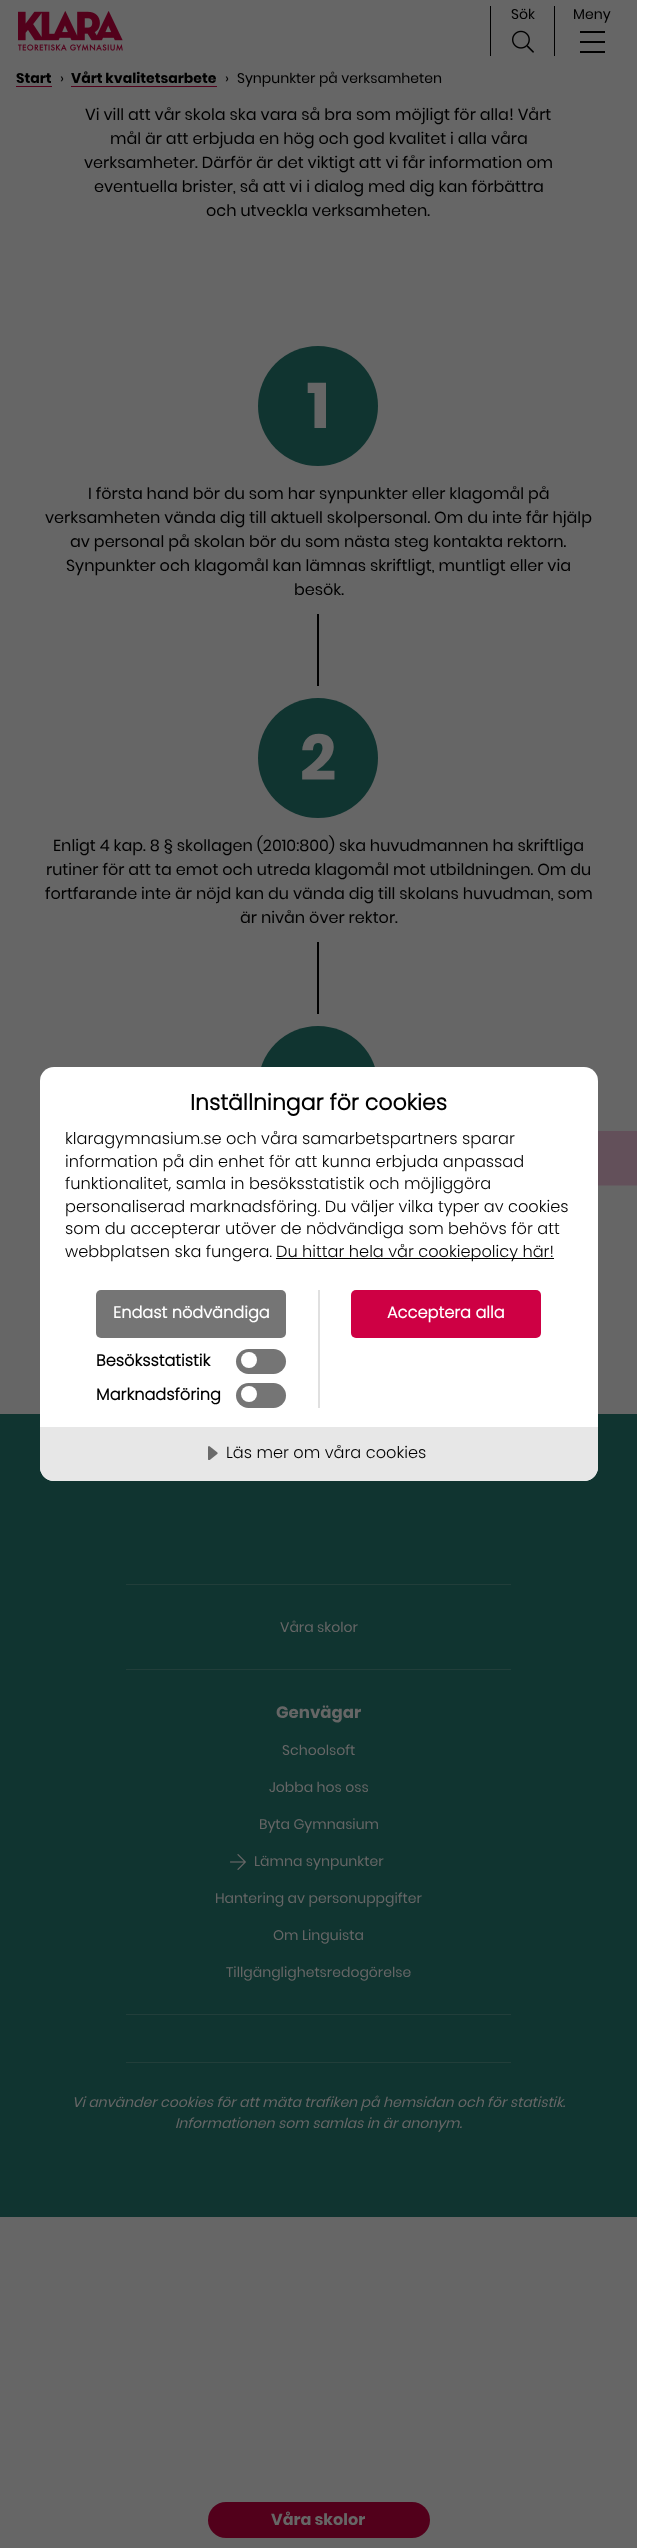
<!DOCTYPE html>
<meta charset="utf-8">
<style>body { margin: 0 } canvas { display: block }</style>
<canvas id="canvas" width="652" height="2548"></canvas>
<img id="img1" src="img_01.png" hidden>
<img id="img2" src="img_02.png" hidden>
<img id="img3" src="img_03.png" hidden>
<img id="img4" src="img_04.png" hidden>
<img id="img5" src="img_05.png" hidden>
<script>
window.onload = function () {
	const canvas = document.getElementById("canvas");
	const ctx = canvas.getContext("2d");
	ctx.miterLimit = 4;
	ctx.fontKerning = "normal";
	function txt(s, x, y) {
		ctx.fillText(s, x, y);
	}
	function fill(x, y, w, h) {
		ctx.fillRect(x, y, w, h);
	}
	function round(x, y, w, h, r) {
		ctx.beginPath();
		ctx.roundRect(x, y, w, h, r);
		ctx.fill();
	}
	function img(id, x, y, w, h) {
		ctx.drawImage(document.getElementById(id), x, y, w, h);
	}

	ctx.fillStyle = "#FFFFFF";
	fill(0, 0, 652, 2548);
	ctx.fillStyle = "#666666";
	fill(0, 0, 637, 2548);
	img("img1", 18, 11, 105, 40);
	ctx.fillStyle = "#000000";
	fill(554, 6, 1, 50);
	fill(490, 6, 1, 50);
	img("img2", 512, 30, 22, 23);
	fill(580, 31, 25, 2);
	fill(580, 41, 25, 2);
	fill(580, 51, 25, 2);
	ctx.fillStyle = "#52001B";
	fill(16, 86, 36, 1);
	fill(71, 86, 146, 1);
	ctx.fillStyle = "#103430";
	ctx.beginPath();
	ctx.arc(318, 406, 60, 0, Math.PI * 2);
	ctx.fill();
	ctx.fillStyle = "#000000";
	fill(317, 614, 2, 72);
	ctx.fillStyle = "#103430";
	ctx.beginPath();
	ctx.arc(318, 758, 60, 0, Math.PI * 2);
	ctx.fill();
	ctx.fillStyle = "#000000";
	fill(317, 942, 2, 72);
	ctx.fillStyle = "#103430";
	ctx.beginPath();
	ctx.arc(318, 1086, 60, 0, Math.PI * 2);
	ctx.fill();
	img("img3", 598, 1131, 39, 55);
	fill(0, 1414, 637, 803);
	ctx.fillStyle = "#223E3A";
	fill(126, 1584, 385, 1);
	fill(126, 1669, 385, 1);
	img("img4", 230, 1854, 16, 16);
	fill(126, 2014, 385, 1);
	fill(126, 2062, 385, 1);
	ctx.fillStyle = "#52001B";
	round(208, 2502, 222, 36, 18);
	ctx.fillStyle = "#FFFFFF";
	round(40, 1067, 558, 414, 14);
	ctx.fillStyle = "#000000";
	fill(276, 1258, 278, 1);
	ctx.fillStyle = "#757575";
	round(96, 1290, 190, 48, 5);
	round(236, 1349, 50, 25, 12.5);
	ctx.fillStyle = "#FFFFFF";
	ctx.beginPath();
	ctx.arc(249, 1360, 8, 0, Math.PI * 2);
	ctx.fill();
	ctx.fillStyle = "#757575";
	round(236, 1383, 50, 25, 12.5);
	ctx.fillStyle = "#FFFFFF";
	ctx.beginPath();
	ctx.arc(249, 1394, 8, 0, Math.PI * 2);
	ctx.fill();
	ctx.fillStyle = "#E0E0E0";
	fill(318, 1290, 2, 118);
	ctx.fillStyle = "#CE0044";
	round(351, 1290, 190, 48, 5);
	ctx.fillStyle = "#E7E7E7";
	ctx.beginPath();
	ctx.roundRect(40, 1427, 558, 54, [0, 0, 14, 14]);
	ctx.fill();
	img("img5", 208, 1446, 10, 14);
	ctx.font = "14px Poppins";
	ctx.fillStyle = "#000000";
	txt("Sök", 511, 19);
	txt("Meny", 573, 19);
	ctx.font = "bold 14px Poppins";
	txt("Start", 16, 83);
	ctx.font = "14px Poppins";
	txt("›", 60, 83);
	ctx.font = "bold 14px Poppins";
	txt("Vårt kvalitetsarbete", 71, 83);
	ctx.font = "14px Poppins";
	txt("›", 225, 83);
	txt("Synpunkter på verksamheten", 237, 83);
	ctx.font = "16px Poppins";
	txt("Vi vill att vår skola ska vara så bra som möjligt för alla! Vårt", 85, 120);
	txt("mål är att erbjuda en hög och god kvalitet i alla våra", 110, 144);
	txt("verksamheter. Därför är det viktigt att vi får information om", 84, 168);
	txt("eventuella brister, så att vi i dialog med dig kan förbättra", 94, 192);
	txt("och utveckla verksamheten.", 206, 216);
	ctx.font = "bold 64px Poppins";
	ctx.fillStyle = "#666666";
	txt("1", 307, 428);
	ctx.font = "16px Poppins";
	ctx.fillStyle = "#000000";
	txt("I första hand bör du som har synpunkter eller klagomål på", 88, 499);
	txt("verksamheten vända dig till aktuell skolpersonal. Om du inte får hjälp", 45, 523);
	txt("av personal på skolan bör du som nästa steg kontakta rektorn.", 70, 547);
	txt("Synpunkter och klagomål kan lämnas skriftligt, muntligt eller via", 66, 571);
	txt("besök.", 294, 595);
	ctx.font = "bold 64px Poppins";
	ctx.fillStyle = "#666666";
	txt("2", 300, 780);
	ctx.font = "16px Poppins";
	ctx.fillStyle = "#000000";
	txt("Enligt 4 kap. 8 § skollagen (2010:800) ska huvudmannen ha skriftliga", 53, 851);
	txt("rutiner för att ta emot och utreda klagomål mot utbildningen. Om du", 46, 875);
	txt("fortfarande inte är nöjd kan du vända dig till skolans huvudman, som", 45, 899);
	txt("är nivån över rektor.", 240, 923);
	ctx.font = "14px Poppins";
	ctx.fillStyle = "#666666";
	txt("Våra skolor", 280, 1632);
	ctx.font = "bold 16.5px Poppins";
	txt("Genvägar", 276, 1718);
	ctx.font = "14px Poppins";
	txt("Schoolsoft", 282, 1755);
	txt("Jobba hos oss", 269, 1792);
	txt("Byta Gymnasium", 259, 1829);
	txt("Lämna synpunkter", 254, 1866);
	txt("Hantering av personuppgifter", 215, 1903);
	txt("Om Linguista", 273, 1940);
	txt("Tillgänglighetsredogörelse", 226, 1977);
	ctx.font = "italic 14px Poppins";
	txt("Vi använder cookies för att mäta trafiken på hemsidan och för statistik.", 72, 2107);
	txt("Informationen som samlas in är anonym.", 175, 2128);
	ctx.font = "bold 16px Poppins";
	txt("Våra skolor", 271, 2525);
	ctx.font = "bold 22px 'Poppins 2'";
	ctx.fillStyle = "#000000";
	txt("Inställningar för cookies", 190, 1110);
	ctx.font = "300 16.2px Poppins";
	txt("klaragymnasium.se och våra samarbetspartners sparar", 65, 1144);
	txt("information på din enhet för att kunna erbjuda anpassad", 65, 1167);
	txt("funktionalitet, samla in besöksstatistik och möjliggöra", 65, 1189);
	txt("personaliserad marknadsföring. Du väljer vilka typer av cookies", 65, 1212);
	txt("som du accepterar utöver de nödvändiga som behövs för att", 65, 1234);
	txt("webbplatsen ska fungera.", 65, 1257);
	txt("Du hittar hela vår cookiepolicy här!", 276, 1257);
	ctx.font = "bold 16.2px 'Poppins 2'";
	ctx.fillStyle = "#FFFFFF";
	txt("Endast nödvändiga", 113, 1318);
	ctx.fillStyle = "#000000";
	txt("Besöksstatistik", 96, 1366);
	txt("Marknadsföring", 96, 1400);
	ctx.fillStyle = "#FFFFFF";
	txt("Acceptera alla", 387, 1318);
	ctx.font = "300 16.2px Poppins";
	ctx.fillStyle = "#000000";
	txt("Läs mer om våra cookies", 226, 1458);
};
</script>
